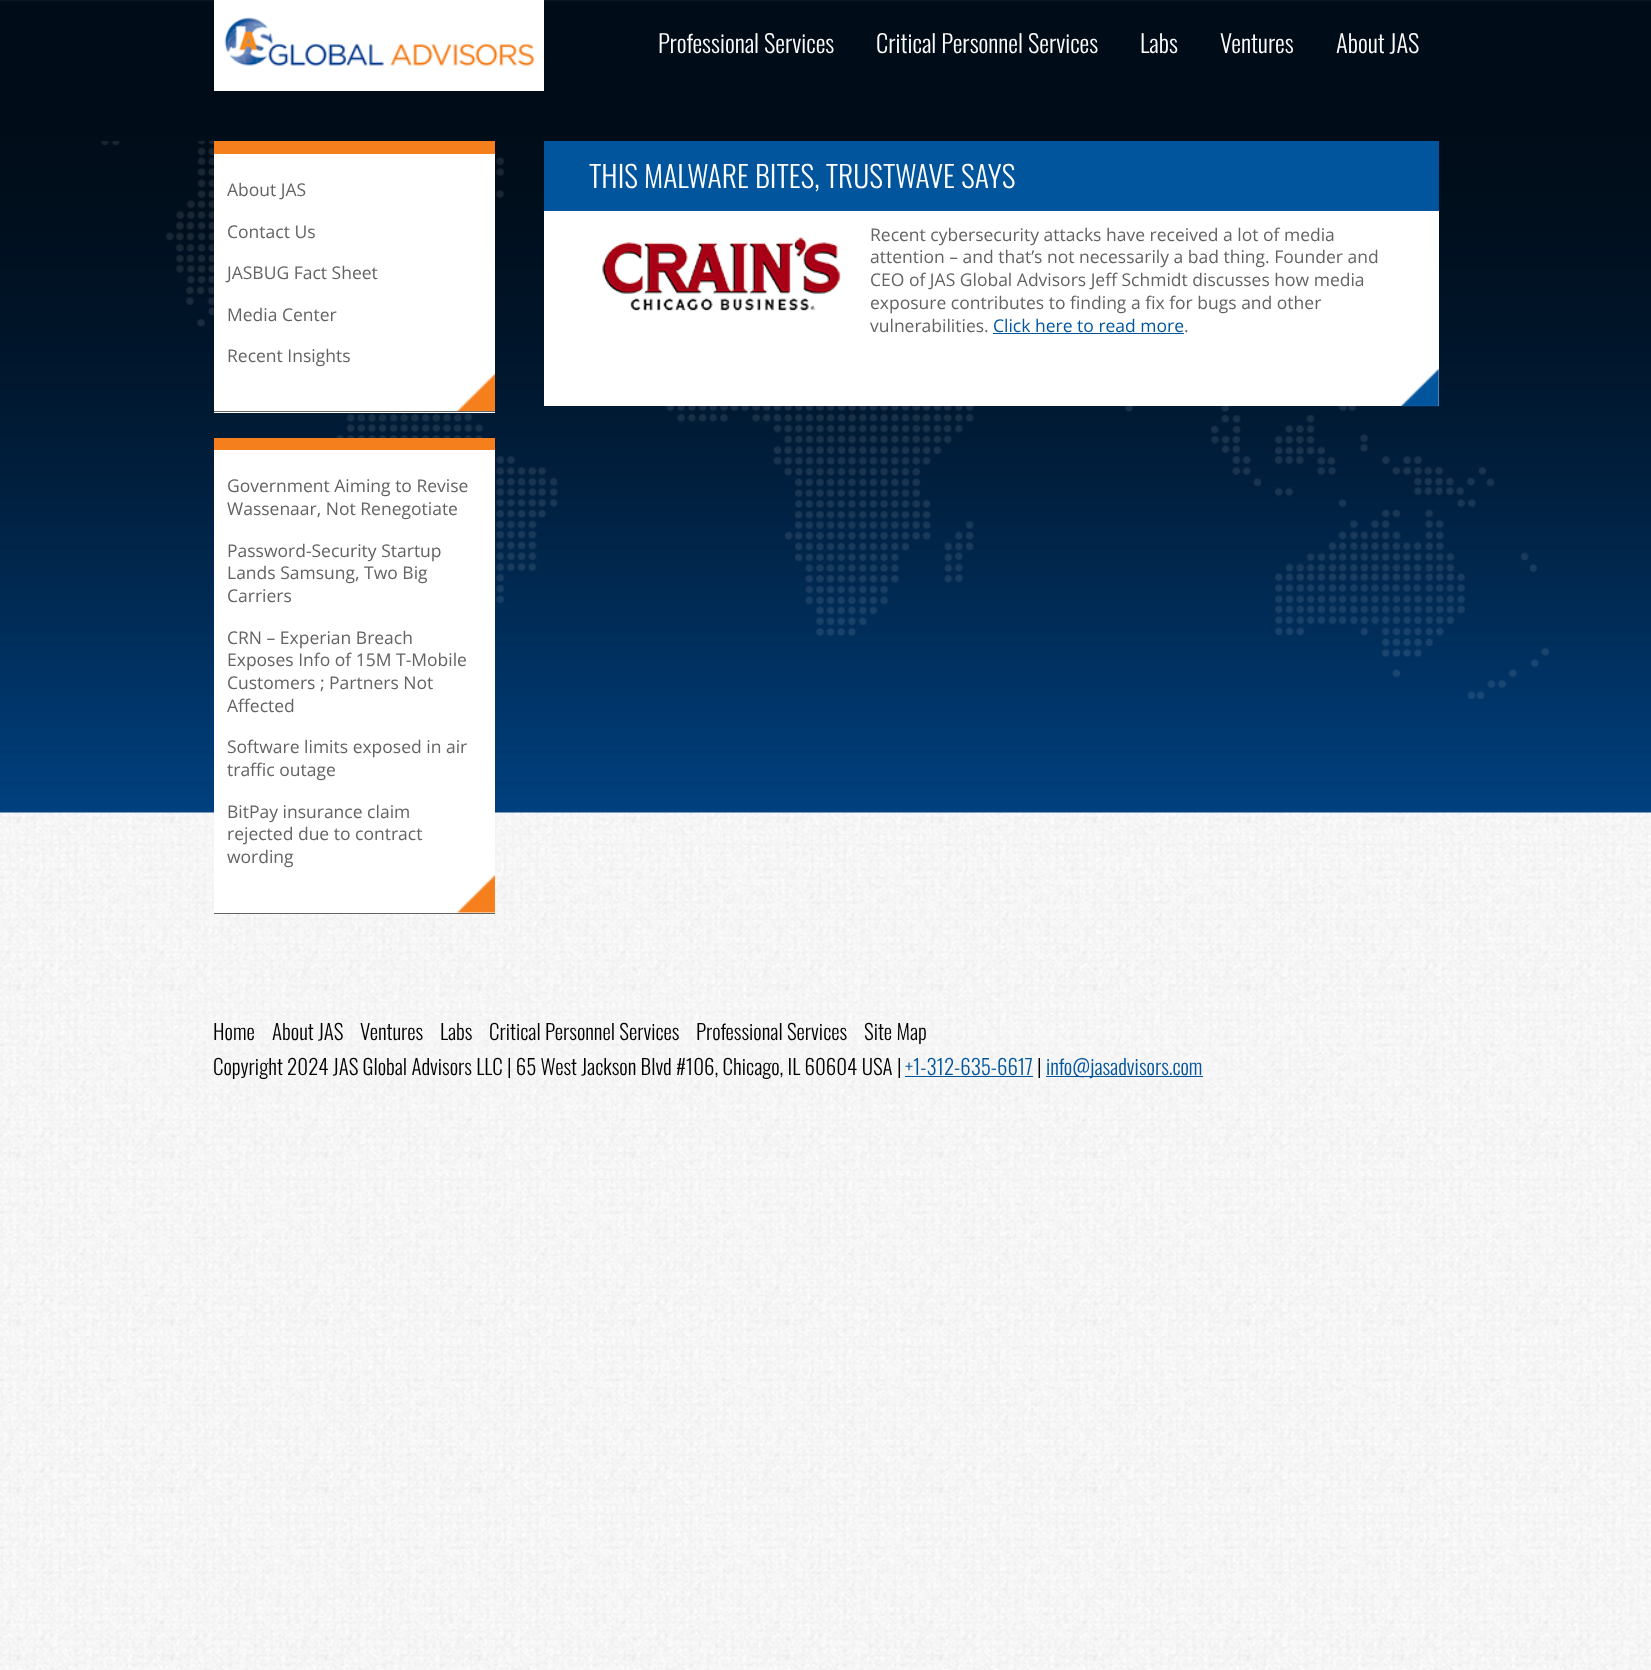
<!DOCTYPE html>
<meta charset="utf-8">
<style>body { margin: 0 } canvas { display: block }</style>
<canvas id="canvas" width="1651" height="1670"></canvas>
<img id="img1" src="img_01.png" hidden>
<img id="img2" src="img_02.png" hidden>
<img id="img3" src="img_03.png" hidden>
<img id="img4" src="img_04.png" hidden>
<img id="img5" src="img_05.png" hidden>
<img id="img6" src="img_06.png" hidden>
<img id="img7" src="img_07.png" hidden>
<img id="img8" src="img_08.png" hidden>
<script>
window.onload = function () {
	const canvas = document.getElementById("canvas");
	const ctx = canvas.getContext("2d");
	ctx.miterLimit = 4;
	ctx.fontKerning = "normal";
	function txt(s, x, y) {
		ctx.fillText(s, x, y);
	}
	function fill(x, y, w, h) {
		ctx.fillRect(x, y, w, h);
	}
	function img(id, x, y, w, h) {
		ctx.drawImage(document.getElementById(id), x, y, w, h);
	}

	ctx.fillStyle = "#FFFFFF";
	fill(0, 0, 1651, 1670);
	img("img1", 0, 812, 1651, 858);
	img("img2", 0, 0, 1651, 813);
	fill(214, 0, 330, 91);
	img("img3", 224, 17, 311, 50);
	img("img4", 101, 141, 1448, 558);
	ctx.fillStyle = "#636363";
	ctx.filter = "blur(0.5px)";
	ctx.beginPath();
	ctx.rect(214, 141, 281, 272);
	ctx.fill();
	ctx.filter = "none";
	ctx.fillStyle = "#FFFFFF";
	fill(214, 154, 281, 259);
	img("img5", 457, 373, 38, 38);
	ctx.fillStyle = "#F57F1D";
	fill(214, 141, 281, 13);
	ctx.fillStyle = "#636363";
	fill(214, 411, 281, 1);
	ctx.filter = "blur(0.5px)";
	ctx.beginPath();
	ctx.rect(214, 438, 281, 476);
	ctx.fill();
	ctx.filter = "none";
	ctx.fillStyle = "#FFFFFF";
	fill(214, 450, 281, 463);
	img("img6", 457, 875, 38, 38);
	ctx.fillStyle = "#F57F1D";
	fill(214, 438, 281, 12);
	ctx.fillStyle = "#636363";
	fill(214, 913, 281, 1);
	ctx.filter = "blur(0.5px)";
	ctx.beginPath();
	ctx.rect(544, 141, 895, 265);
	ctx.fill();
	ctx.filter = "none";
	ctx.fillStyle = "#FFFFFF";
	fill(544, 211, 895, 195);
	img("img7", 1401, 368, 38, 39);
	ctx.fillStyle = "#01559D";
	fill(544, 141, 895, 70);
	img("img8", 602, 237, 239, 74);
	fill(993, 333, 191, 1);
	fill(905, 1076, 128, 1);
	fill(1046, 1076, 157, 1);
	ctx.font = "300 24.5px Oswald";
	ctx.fillStyle = "#FFFFFF";
	txt("Professional Services", 658, 53);
	txt("Critical Personnel Services", 876, 53);
	txt("Labs", 1140, 53);
	txt("Ventures", 1220, 53);
	txt("About JAS", 1336, 53);
	ctx.font = "17.5px Open Sans";
	ctx.fillStyle = "#636363";
	txt("About JAS", 227, 196);
	txt("Contact Us", 227, 238);
	txt("JASBUG Fact Sheet", 227, 279);
	txt("Media Center", 227, 321);
	txt("Recent Insights", 227, 362);
	txt("Government Aiming to Revise", 227, 492);
	txt("Wassenaar, Not Renegotiate", 227, 515);
	txt("Password-Security Startup", 227, 557);
	txt("Lands Samsung, Two Big", 227, 579);
	txt("Carriers", 227, 602);
	txt("CRN – Experian Breach", 227, 644);
	txt("Exposes Info of 15M T-Mobile", 227, 666);
	txt("Customers ; Partners Not", 227, 689);
	txt("Affected", 227, 712);
	txt("Software limits exposed in air", 227, 753);
	txt("traffic outage", 227, 776);
	txt("BitPay insurance claim", 227, 818);
	txt("rejected due to contract", 227, 840);
	txt("wording", 227, 863);
	ctx.font = "300 29.75px Oswald";
	ctx.fillStyle = "#FFFFFF";
	txt("THIS MALWARE BITES, TRUSTWAVE SAYS", 589, 188);
	ctx.font = "17.5px Open Sans";
	ctx.fillStyle = "#636363";
	txt("Recent cybersecurity attacks have received a lot of media", 870, 241);
	txt("attention – and that’s not necessarily a bad thing. Founder and", 870, 263);
	txt("CEO of JAS Global Advisors Jeff Schmidt discusses how media", 870, 286);
	txt("exposure contributes to finding a fix for bugs and other", 870, 309);
	txt("vulnerabilities.", 870, 332);
	ctx.fillStyle = "#01559D";
	txt("Click here to read more", 993, 332);
	ctx.fillStyle = "#636363";
	txt(".", 1184, 332);
	ctx.font = "300 21px Oswald";
	ctx.fillStyle = "#000000";
	txt("Home", 213, 1040);
	txt("About JAS", 272, 1040);
	txt("Ventures", 360, 1040);
	txt("Labs", 440, 1040);
	txt("Critical Personnel Services", 489, 1040);
	txt("Professional Services", 696, 1040);
	txt("Site Map", 864, 1040);
	txt("Copyright 2024 JAS Global Advisors LLC | 65 West Jackson Blvd #106, Chicago, IL 60604 USA |", 213, 1075);
	ctx.fillStyle = "#01559D";
	txt("+1-312-635-6617", 905, 1075);
	ctx.fillStyle = "#000000";
	txt("|", 1037, 1075);
	ctx.fillStyle = "#01559D";
	txt("info@jasadvisors.com", 1046, 1075);
};
</script>
